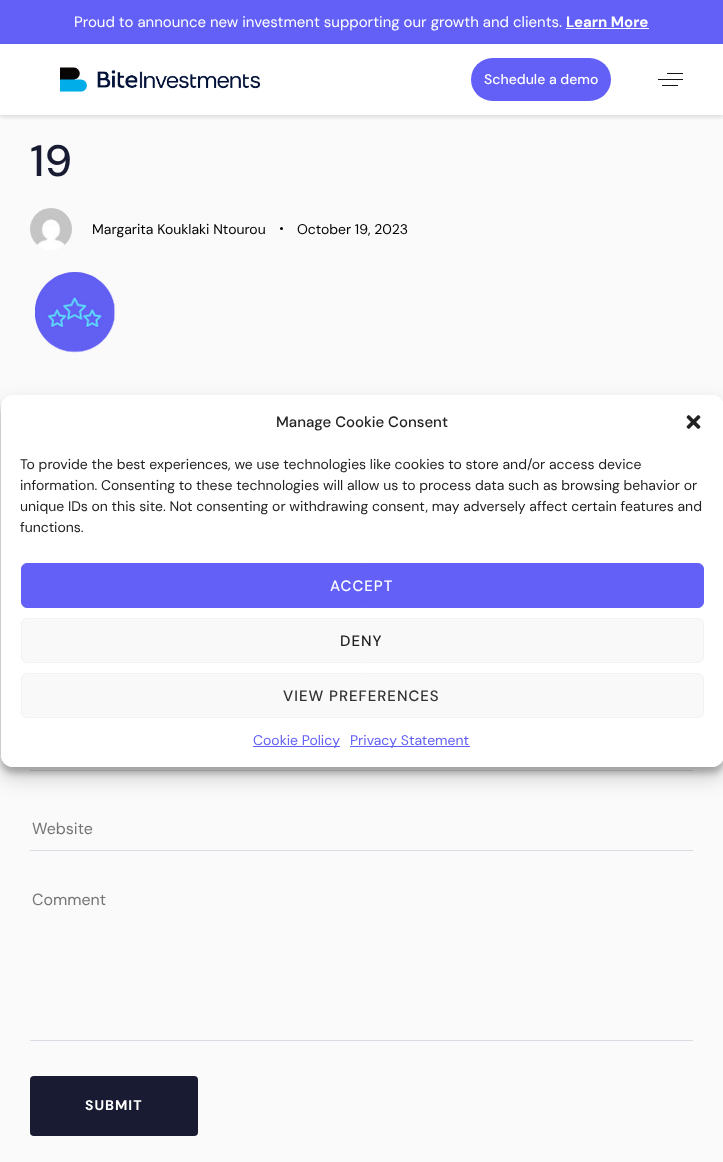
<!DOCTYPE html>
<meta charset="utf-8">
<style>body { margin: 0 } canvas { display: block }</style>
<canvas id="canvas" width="723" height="1162"></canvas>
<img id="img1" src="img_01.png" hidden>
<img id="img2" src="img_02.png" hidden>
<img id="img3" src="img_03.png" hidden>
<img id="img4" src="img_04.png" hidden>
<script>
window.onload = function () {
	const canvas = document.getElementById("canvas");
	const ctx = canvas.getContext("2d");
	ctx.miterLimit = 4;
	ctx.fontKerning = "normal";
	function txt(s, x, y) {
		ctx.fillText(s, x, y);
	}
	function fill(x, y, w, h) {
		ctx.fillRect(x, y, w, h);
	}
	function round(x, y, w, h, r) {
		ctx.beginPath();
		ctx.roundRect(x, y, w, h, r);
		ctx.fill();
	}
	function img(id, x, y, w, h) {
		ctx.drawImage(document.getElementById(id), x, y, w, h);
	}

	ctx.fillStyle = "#FAFAFA";
	fill(0, 0, 723, 1162);
	ctx.fillStyle = "#6260F6";
	fill(0, 0, 723, 44);
	ctx.fillStyle = "#FFFFFF";
	fill(566, 28, 83, 1);
	ctx.fillStyle = "rgba(0, 0, 0, 0.13)";
	ctx.filter = "blur(2px)";
	ctx.beginPath();
	ctx.rect(0, 46, 723, 71);
	ctx.fill();
	ctx.filter = "none";
	ctx.fillStyle = "#FFFFFF";
	fill(0, 44, 723, 71);
	img("img1", 60, 67, 200, 25);
	ctx.fillStyle = "#6260F6";
	round(471, 58, 140, 43, 21.5);
	ctx.fillStyle = "#151515";
	fill(667, 73, 16, 1);
	fill(658, 79, 25, 1);
	fill(662, 85, 16, 1);
	img("img2", 30, 208, 42, 42);
	ctx.fillStyle = "#000000";
	ctx.beginPath();
	ctx.arc(281.5, 228.5, 1.5, 0, Math.PI * 2);
	ctx.fill();
	img("img3", 35, 272, 80, 81);
	ctx.fillStyle = "#D8DBE2";
	fill(30, 770, 663, 1);
	fill(30, 850, 663, 1);
	fill(30, 1040, 663, 1);
	ctx.fillStyle = "#181B31";
	round(30, 1076, 168, 60, 4);
	ctx.save();
	ctx.beginPath();
	ctx.moveTo(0, 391);
	ctx.lineTo(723, 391);
	ctx.lineTo(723, 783);
	ctx.lineTo(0, 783);
	ctx.closePath();
	ctx.moveTo(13, 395);
	ctx.lineTo(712, 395);
	ctx.bezierCurveTo(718.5, 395, 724, 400.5, 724, 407);
	ctx.lineTo(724, 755);
	ctx.bezierCurveTo(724, 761.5, 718.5, 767, 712, 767);
	ctx.lineTo(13, 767);
	ctx.bezierCurveTo(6.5, 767, 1, 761.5, 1, 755);
	ctx.lineTo(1, 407);
	ctx.bezierCurveTo(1, 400.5, 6.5, 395, 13, 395);
	ctx.closePath();
	ctx.clip("evenodd");
	ctx.fillStyle = "rgba(0, 0, 0, 0.23)";
	ctx.filter = "blur(3px)";
	ctx.beginPath();
	ctx.roundRect(1, 401, 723, 372, 12);
	ctx.fill();
	ctx.filter = "none";
	ctx.restore();
	ctx.save();
	ctx.beginPath();
	ctx.moveTo(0, 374);
	ctx.lineTo(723, 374);
	ctx.lineTo(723, 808);
	ctx.lineTo(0, 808);
	ctx.closePath();
	ctx.moveTo(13, 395);
	ctx.lineTo(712, 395);
	ctx.bezierCurveTo(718.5, 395, 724, 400.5, 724, 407);
	ctx.lineTo(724, 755);
	ctx.bezierCurveTo(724, 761.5, 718.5, 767, 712, 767);
	ctx.lineTo(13, 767);
	ctx.bezierCurveTo(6.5, 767, 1, 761.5, 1, 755);
	ctx.lineTo(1, 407);
	ctx.bezierCurveTo(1, 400.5, 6.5, 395, 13, 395);
	ctx.closePath();
	ctx.clip("evenodd");
	ctx.fillStyle = "rgba(0, 0, 0, 0.19)";
	ctx.filter = "blur(10px)";
	ctx.beginPath();
	ctx.roundRect(1, 405, 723, 372, 12);
	ctx.fill();
	ctx.filter = "none";
	ctx.restore();
	ctx.fillStyle = "#FFFFFF";
	round(1, 395, 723, 372, 12);
	img("img4", 686, 415, 15, 14);
	ctx.fillStyle = "#6260F6";
	ctx.beginPath();
	ctx.roundRect(21.5, 563.5, 682, 44, 5.5);
	ctx.fill();
	ctx.strokeStyle = "#6260F6";
	ctx.stroke();
	ctx.fillStyle = "#F9F9F9";
	ctx.beginPath();
	ctx.roundRect(21.5, 618.5, 682, 44, 5.5);
	ctx.fill();
	ctx.strokeStyle = "#F2F2F2";
	ctx.stroke();
	ctx.beginPath();
	ctx.roundRect(21.5, 673.5, 682, 44, 5.5);
	ctx.fill();
	ctx.stroke();
	ctx.fillStyle = "#6260F6";
	fill(253, 746, 87, 1);
	fill(350, 746, 120, 1);
	ctx.font = "15px DM Sans";
	ctx.fillStyle = "#FFFFFF";
	txt("Proud to announce new investment supporting our growth and clients.", 74, 27);
	ctx.font = "bold 15px DM Sans";
	txt("Learn More", 566, 27);
	ctx.font = "500 14px DM Sans";
	txt("Schedule a demo", 484, 84);
	ctx.font = "500 44px DM Sans";
	ctx.fillStyle = "#181B31";
	txt("19", 30, 176);
	ctx.font = "14px DM Sans";
	ctx.fillStyle = "#000000";
	txt("Margarita Kouklaki Ntourou", 92, 234);
	txt("October 19, 2023", 297, 234);
	ctx.font = "16px DM Sans";
	ctx.fillStyle = "#757575";
	txt("Website", 32, 834);
	txt("Comment", 32, 905);
	ctx.letterSpacing = "1px";
	ctx.font = "bold 14px DM Sans";
	ctx.fillStyle = "#FFFFFF";
	txt("SUBMIT", 85, 1110);
	ctx.letterSpacing = "0px";
	ctx.font = "500 15px DM Sans";
	ctx.fillStyle = "#222222";
	txt("Manage Cookie Consent", 276, 427);
	ctx.font = "14px DM Sans";
	txt("To provide the best experiences, we use technologies like cookies to store and/or access device", 20, 469);
	txt("information. Consenting to these technologies will allow us to process data such as browsing behavior or", 20, 490);
	ctx.save();
	ctx.beginPath();
	ctx.rect(21, 454, 683, 89);
	ctx.clip();
	txt("unique IDs on this site. Not consenting or withdrawing consent, may adversely affect certain features and", 20, 511);
	ctx.restore();
	txt("functions.", 20, 532);
	ctx.letterSpacing = "1px";
	ctx.font = "500 15px DM Sans";
	ctx.fillStyle = "#FFFFFF";
	txt("ACCEPT", 330, 591);
	ctx.fillStyle = "#222222";
	txt("DENY", 340, 646);
	ctx.fillStyle = "#333333";
	txt("VIEW PREFERENCES", 283, 701);
	ctx.letterSpacing = "0px";
	ctx.font = "14px DM Sans";
	ctx.fillStyle = "#6260F6";
	txt("Cookie Policy", 253, 745);
	txt("Privacy Statement", 350, 745);
};
</script>
